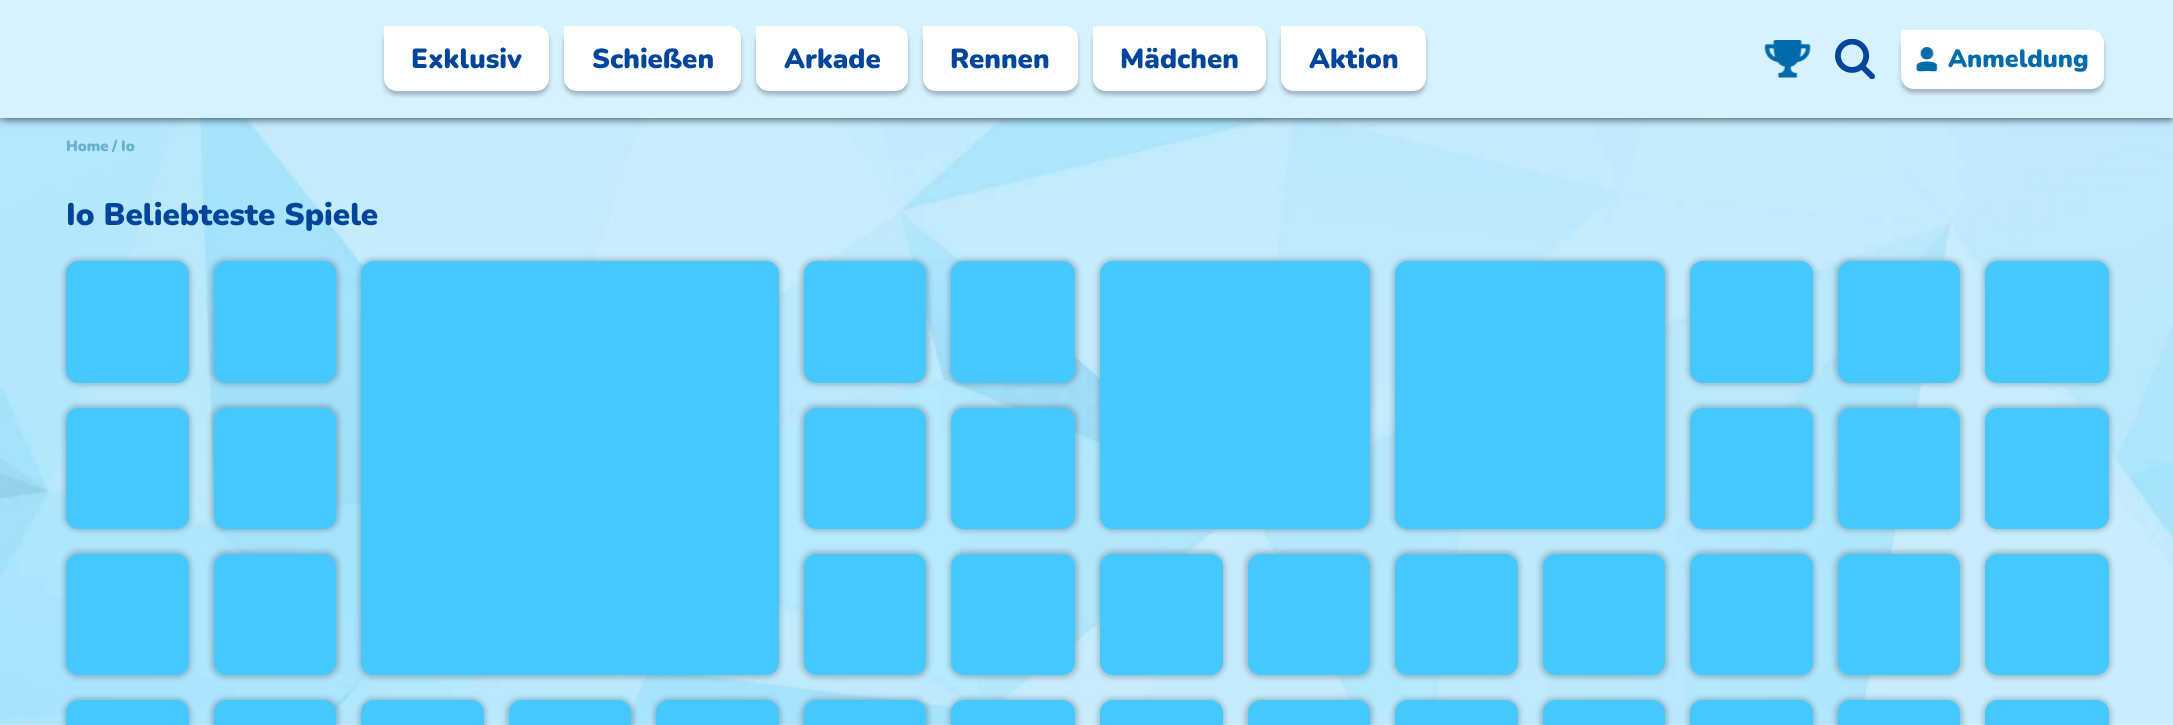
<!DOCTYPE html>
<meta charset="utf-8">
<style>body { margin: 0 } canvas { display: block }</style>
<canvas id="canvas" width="2173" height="725"></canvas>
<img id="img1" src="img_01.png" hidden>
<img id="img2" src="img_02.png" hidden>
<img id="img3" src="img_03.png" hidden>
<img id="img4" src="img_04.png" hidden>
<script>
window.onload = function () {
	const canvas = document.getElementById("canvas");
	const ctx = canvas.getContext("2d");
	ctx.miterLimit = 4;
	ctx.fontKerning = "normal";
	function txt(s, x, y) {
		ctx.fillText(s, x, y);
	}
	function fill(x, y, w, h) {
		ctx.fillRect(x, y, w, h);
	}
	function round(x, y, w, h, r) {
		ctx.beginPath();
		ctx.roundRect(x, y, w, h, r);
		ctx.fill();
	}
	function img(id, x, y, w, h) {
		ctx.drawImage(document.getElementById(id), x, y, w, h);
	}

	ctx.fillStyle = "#FFFFFF";
	fill(0, 0, 2173, 725);
	img("img1", 0, 118, 2173, 607);
	ctx.fillStyle = "rgba(0, 0, 0, 0.7)";
	ctx.filter = "blur(4px)";
	ctx.beginPath();
	ctx.rect(0, 1, 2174, 118);
	ctx.fill();
	ctx.filter = "none";
	ctx.fillStyle = "#D6F2FF";
	fill(0, 0, 2173, 118);
	ctx.fillStyle = "rgba(0, 0, 0, 0.25)";
	ctx.filter = "blur(2px)";
	ctx.beginPath();
	ctx.roundRect(384, 30, 165, 65, 13);
	ctx.fill();
	ctx.filter = "none";
	ctx.fillStyle = "#FFFFFF";
	ctx.beginPath();
	ctx.roundRect(384, 26, 165, 65, [0, 13, 13, 13]);
	ctx.fill();
	ctx.fillStyle = "rgba(0, 0, 0, 0.25)";
	ctx.filter = "blur(2px)";
	ctx.beginPath();
	ctx.roundRect(564, 30, 177, 65, 13);
	ctx.fill();
	ctx.filter = "none";
	ctx.fillStyle = "#FFFFFF";
	ctx.beginPath();
	ctx.roundRect(564, 26, 177, 65, [0, 13, 13, 13]);
	ctx.fill();
	ctx.fillStyle = "rgba(0, 0, 0, 0.25)";
	ctx.filter = "blur(2px)";
	ctx.beginPath();
	ctx.roundRect(756, 30, 152, 65, 13);
	ctx.fill();
	ctx.filter = "none";
	ctx.fillStyle = "#FFFFFF";
	ctx.beginPath();
	ctx.roundRect(756, 26, 152, 65, [0, 13, 13, 13]);
	ctx.fill();
	ctx.fillStyle = "rgba(0, 0, 0, 0.25)";
	ctx.filter = "blur(2px)";
	ctx.beginPath();
	ctx.roundRect(923, 30, 155, 65, 13);
	ctx.fill();
	ctx.filter = "none";
	ctx.fillStyle = "#FFFFFF";
	ctx.beginPath();
	ctx.roundRect(923, 26, 155, 65, [0, 13, 13, 13]);
	ctx.fill();
	ctx.fillStyle = "rgba(0, 0, 0, 0.25)";
	ctx.filter = "blur(2px)";
	ctx.beginPath();
	ctx.roundRect(1093, 30, 173, 65, 13);
	ctx.fill();
	ctx.filter = "none";
	ctx.fillStyle = "#FFFFFF";
	ctx.beginPath();
	ctx.roundRect(1093, 26, 173, 65, [0, 13, 13, 13]);
	ctx.fill();
	ctx.fillStyle = "rgba(0, 0, 0, 0.25)";
	ctx.filter = "blur(2px)";
	ctx.beginPath();
	ctx.roundRect(1281, 30, 145, 65, 13);
	ctx.fill();
	ctx.filter = "none";
	ctx.fillStyle = "#FFFFFF";
	ctx.beginPath();
	ctx.roundRect(1281, 26, 145, 65, [0, 13, 13, 13]);
	ctx.fill();
	img("img2", 1764, 40, 47, 38);
	img("img3", 1835, 39, 40, 40);
	ctx.fillStyle = "rgba(0, 0, 0, 0.25)";
	ctx.filter = "blur(2px)";
	ctx.beginPath();
	ctx.roundRect(1901, 34, 203, 59, 13);
	ctx.fill();
	ctx.filter = "none";
	ctx.fillStyle = "#FFFFFF";
	ctx.beginPath();
	ctx.roundRect(1901, 30, 203, 59, [0, 13, 13, 13]);
	ctx.fill();
	img("img4", 1915, 47, 23, 25);
	ctx.fillStyle = "rgba(0, 0, 0, 0.2)";
	ctx.filter = "blur(2.5px)";
	ctx.beginPath();
	ctx.roundRect(64, 259, 127, 126, 15);
	ctx.fill();
	ctx.filter = "none";
	ctx.fillStyle = "#44C8FD";
	round(66, 261, 123, 122, 13);
	ctx.fillStyle = "rgba(0, 0, 0, 0.2)";
	ctx.filter = "blur(2.5px)";
	ctx.beginPath();
	ctx.roundRect(211, 259, 128, 126, 15);
	ctx.fill();
	ctx.filter = "none";
	ctx.fillStyle = "#44C8FD";
	round(214, 261, 122, 122, 13);
	ctx.fillStyle = "rgba(0, 0, 0, 0.2)";
	ctx.filter = "blur(2.5px)";
	ctx.beginPath();
	ctx.roundRect(359, 259, 422, 419, 15);
	ctx.fill();
	ctx.filter = "none";
	ctx.fillStyle = "#44C8FD";
	round(361, 261, 418, 414, 13);
	ctx.fillStyle = "rgba(0, 0, 0, 0.2)";
	ctx.filter = "blur(2.5px)";
	ctx.beginPath();
	ctx.roundRect(801, 259, 128, 126, 15);
	ctx.fill();
	ctx.filter = "none";
	ctx.fillStyle = "#44C8FD";
	round(804, 261, 122, 122, 13);
	ctx.fillStyle = "rgba(0, 0, 0, 0.2)";
	ctx.filter = "blur(2.5px)";
	ctx.beginPath();
	ctx.roundRect(949, 259, 129, 126, 15);
	ctx.fill();
	ctx.filter = "none";
	ctx.fillStyle = "#44C8FD";
	round(951, 261, 124, 122, 13);
	ctx.fillStyle = "rgba(0, 0, 0, 0.2)";
	ctx.filter = "blur(2.5px)";
	ctx.beginPath();
	ctx.roundRect(1098, 259, 275, 272, 15);
	ctx.fill();
	ctx.filter = "none";
	ctx.fillStyle = "#44C8FD";
	round(1100, 261, 270, 268, 13);
	ctx.fillStyle = "rgba(0, 0, 0, 0.2)";
	ctx.filter = "blur(2.5px)";
	ctx.beginPath();
	ctx.roundRect(1393, 259, 275, 272, 15);
	ctx.fill();
	ctx.filter = "none";
	ctx.fillStyle = "#44C8FD";
	round(1395, 261, 270, 268, 13);
	ctx.fillStyle = "rgba(0, 0, 0, 0.2)";
	ctx.filter = "blur(2.5px)";
	ctx.beginPath();
	ctx.roundRect(1688, 259, 127, 126, 15);
	ctx.fill();
	ctx.filter = "none";
	ctx.fillStyle = "#44C8FD";
	round(1690, 261, 123, 122, 13);
	ctx.fillStyle = "rgba(0, 0, 0, 0.2)";
	ctx.filter = "blur(2.5px)";
	ctx.beginPath();
	ctx.roundRect(1835, 259, 128, 126, 15);
	ctx.fill();
	ctx.filter = "none";
	ctx.fillStyle = "#44C8FD";
	round(1838, 261, 122, 122, 13);
	ctx.fillStyle = "rgba(0, 0, 0, 0.2)";
	ctx.filter = "blur(2.5px)";
	ctx.beginPath();
	ctx.roundRect(1983, 259, 128, 126, 15);
	ctx.fill();
	ctx.filter = "none";
	ctx.fillStyle = "#44C8FD";
	round(1985, 261, 124, 122, 13);
	ctx.fillStyle = "rgba(0, 0, 0, 0.2)";
	ctx.filter = "blur(2.5px)";
	ctx.beginPath();
	ctx.roundRect(64, 405, 127, 126, 15);
	ctx.fill();
	ctx.filter = "none";
	ctx.fillStyle = "#44C8FD";
	round(66, 408, 123, 121, 13);
	ctx.fillStyle = "rgba(0, 0, 0, 0.2)";
	ctx.filter = "blur(2.5px)";
	ctx.beginPath();
	ctx.roundRect(211, 405, 128, 126, 15);
	ctx.fill();
	ctx.filter = "none";
	ctx.fillStyle = "#44C8FD";
	round(214, 408, 122, 121, 13);
	ctx.fillStyle = "rgba(0, 0, 0, 0.2)";
	ctx.filter = "blur(2.5px)";
	ctx.beginPath();
	ctx.roundRect(801, 405, 128, 126, 15);
	ctx.fill();
	ctx.filter = "none";
	ctx.fillStyle = "#44C8FD";
	round(804, 408, 122, 121, 13);
	ctx.fillStyle = "rgba(0, 0, 0, 0.2)";
	ctx.filter = "blur(2.5px)";
	ctx.beginPath();
	ctx.roundRect(949, 405, 129, 126, 15);
	ctx.fill();
	ctx.filter = "none";
	ctx.fillStyle = "#44C8FD";
	round(951, 408, 124, 121, 13);
	ctx.fillStyle = "rgba(0, 0, 0, 0.2)";
	ctx.filter = "blur(2.5px)";
	ctx.beginPath();
	ctx.roundRect(1688, 405, 127, 126, 15);
	ctx.fill();
	ctx.filter = "none";
	ctx.fillStyle = "#44C8FD";
	round(1690, 408, 123, 121, 13);
	ctx.fillStyle = "rgba(0, 0, 0, 0.2)";
	ctx.filter = "blur(2.5px)";
	ctx.beginPath();
	ctx.roundRect(1835, 405, 128, 126, 15);
	ctx.fill();
	ctx.filter = "none";
	ctx.fillStyle = "#44C8FD";
	round(1838, 408, 122, 121, 13);
	ctx.fillStyle = "rgba(0, 0, 0, 0.2)";
	ctx.filter = "blur(2.5px)";
	ctx.beginPath();
	ctx.roundRect(1983, 405, 128, 126, 15);
	ctx.fill();
	ctx.filter = "none";
	ctx.fillStyle = "#44C8FD";
	round(1985, 408, 124, 121, 13);
	ctx.fillStyle = "rgba(0, 0, 0, 0.2)";
	ctx.filter = "blur(2.5px)";
	ctx.beginPath();
	ctx.roundRect(64, 551, 127, 127, 15);
	ctx.fill();
	ctx.filter = "none";
	ctx.fillStyle = "#44C8FD";
	round(66, 554, 123, 121, 13);
	ctx.fillStyle = "rgba(0, 0, 0, 0.2)";
	ctx.filter = "blur(2.5px)";
	ctx.beginPath();
	ctx.roundRect(211, 551, 128, 127, 15);
	ctx.fill();
	ctx.filter = "none";
	ctx.fillStyle = "#44C8FD";
	round(214, 554, 122, 121, 13);
	ctx.fillStyle = "rgba(0, 0, 0, 0.2)";
	ctx.filter = "blur(2.5px)";
	ctx.beginPath();
	ctx.roundRect(801, 551, 128, 127, 15);
	ctx.fill();
	ctx.filter = "none";
	ctx.fillStyle = "#44C8FD";
	round(804, 554, 122, 121, 13);
	ctx.fillStyle = "rgba(0, 0, 0, 0.2)";
	ctx.filter = "blur(2.5px)";
	ctx.beginPath();
	ctx.roundRect(949, 551, 129, 127, 15);
	ctx.fill();
	ctx.filter = "none";
	ctx.fillStyle = "#44C8FD";
	round(951, 554, 124, 121, 13);
	ctx.fillStyle = "rgba(0, 0, 0, 0.2)";
	ctx.filter = "blur(2.5px)";
	ctx.beginPath();
	ctx.roundRect(1098, 551, 127, 127, 15);
	ctx.fill();
	ctx.filter = "none";
	ctx.fillStyle = "#44C8FD";
	round(1100, 554, 123, 121, 13);
	ctx.fillStyle = "rgba(0, 0, 0, 0.2)";
	ctx.filter = "blur(2.5px)";
	ctx.beginPath();
	ctx.roundRect(1245, 551, 128, 127, 15);
	ctx.fill();
	ctx.filter = "none";
	ctx.fillStyle = "#44C8FD";
	round(1248, 554, 122, 121, 13);
	ctx.fillStyle = "rgba(0, 0, 0, 0.2)";
	ctx.filter = "blur(2.5px)";
	ctx.beginPath();
	ctx.roundRect(1393, 551, 127, 127, 15);
	ctx.fill();
	ctx.filter = "none";
	ctx.fillStyle = "#44C8FD";
	round(1395, 554, 123, 121, 13);
	ctx.fillStyle = "rgba(0, 0, 0, 0.2)";
	ctx.filter = "blur(2.5px)";
	ctx.beginPath();
	ctx.roundRect(1540, 551, 128, 127, 15);
	ctx.fill();
	ctx.filter = "none";
	ctx.fillStyle = "#44C8FD";
	round(1543, 554, 122, 121, 13);
	ctx.fillStyle = "rgba(0, 0, 0, 0.2)";
	ctx.filter = "blur(2.5px)";
	ctx.beginPath();
	ctx.roundRect(1688, 551, 127, 127, 15);
	ctx.fill();
	ctx.filter = "none";
	ctx.fillStyle = "#44C8FD";
	round(1690, 554, 123, 121, 13);
	ctx.fillStyle = "rgba(0, 0, 0, 0.2)";
	ctx.filter = "blur(2.5px)";
	ctx.beginPath();
	ctx.roundRect(1835, 551, 128, 127, 15);
	ctx.fill();
	ctx.filter = "none";
	ctx.fillStyle = "#44C8FD";
	round(1838, 554, 122, 121, 13);
	ctx.fillStyle = "rgba(0, 0, 0, 0.2)";
	ctx.filter = "blur(2.5px)";
	ctx.beginPath();
	ctx.roundRect(1983, 551, 128, 127, 15);
	ctx.fill();
	ctx.filter = "none";
	ctx.fillStyle = "#44C8FD";
	round(1985, 554, 124, 121, 13);
	ctx.fillStyle = "rgba(0, 0, 0, 0.2)";
	ctx.filter = "blur(2.5px)";
	ctx.beginPath();
	ctx.roundRect(64, 698, 127, 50, 15);
	ctx.fill();
	ctx.filter = "none";
	ctx.fillStyle = "#44C8FD";
	round(66, 700, 123, 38, 13);
	ctx.fillStyle = "rgba(0, 0, 0, 0.2)";
	ctx.filter = "blur(2.5px)";
	ctx.beginPath();
	ctx.roundRect(211, 698, 128, 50, 15);
	ctx.fill();
	ctx.filter = "none";
	ctx.fillStyle = "#44C8FD";
	round(214, 700, 122, 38, 13);
	ctx.fillStyle = "rgba(0, 0, 0, 0.2)";
	ctx.filter = "blur(2.5px)";
	ctx.beginPath();
	ctx.roundRect(359, 698, 127, 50, 15);
	ctx.fill();
	ctx.filter = "none";
	ctx.fillStyle = "#44C8FD";
	round(361, 700, 123, 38, 13);
	ctx.fillStyle = "rgba(0, 0, 0, 0.2)";
	ctx.filter = "blur(2.5px)";
	ctx.beginPath();
	ctx.roundRect(506, 698, 128, 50, 15);
	ctx.fill();
	ctx.filter = "none";
	ctx.fillStyle = "#44C8FD";
	round(509, 700, 122, 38, 13);
	ctx.fillStyle = "rgba(0, 0, 0, 0.2)";
	ctx.filter = "blur(2.5px)";
	ctx.beginPath();
	ctx.roundRect(654, 698, 127, 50, 15);
	ctx.fill();
	ctx.filter = "none";
	ctx.fillStyle = "#44C8FD";
	round(656, 700, 123, 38, 13);
	ctx.fillStyle = "rgba(0, 0, 0, 0.2)";
	ctx.filter = "blur(2.5px)";
	ctx.beginPath();
	ctx.roundRect(801, 698, 128, 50, 15);
	ctx.fill();
	ctx.filter = "none";
	ctx.fillStyle = "#44C8FD";
	round(804, 700, 122, 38, 13);
	ctx.fillStyle = "rgba(0, 0, 0, 0.2)";
	ctx.filter = "blur(2.5px)";
	ctx.beginPath();
	ctx.roundRect(949, 698, 129, 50, 15);
	ctx.fill();
	ctx.filter = "none";
	ctx.fillStyle = "#44C8FD";
	round(951, 700, 124, 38, 13);
	ctx.fillStyle = "rgba(0, 0, 0, 0.2)";
	ctx.filter = "blur(2.5px)";
	ctx.beginPath();
	ctx.roundRect(1098, 698, 127, 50, 15);
	ctx.fill();
	ctx.filter = "none";
	ctx.fillStyle = "#44C8FD";
	round(1100, 700, 123, 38, 13);
	ctx.fillStyle = "rgba(0, 0, 0, 0.2)";
	ctx.filter = "blur(2.5px)";
	ctx.beginPath();
	ctx.roundRect(1245, 698, 128, 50, 15);
	ctx.fill();
	ctx.filter = "none";
	ctx.fillStyle = "#44C8FD";
	round(1248, 700, 122, 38, 13);
	ctx.fillStyle = "rgba(0, 0, 0, 0.2)";
	ctx.filter = "blur(2.5px)";
	ctx.beginPath();
	ctx.roundRect(1393, 698, 127, 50, 15);
	ctx.fill();
	ctx.filter = "none";
	ctx.fillStyle = "#44C8FD";
	round(1395, 700, 123, 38, 13);
	ctx.fillStyle = "rgba(0, 0, 0, 0.2)";
	ctx.filter = "blur(2.5px)";
	ctx.beginPath();
	ctx.roundRect(1540, 698, 128, 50, 15);
	ctx.fill();
	ctx.filter = "none";
	ctx.fillStyle = "#44C8FD";
	round(1543, 700, 122, 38, 13);
	ctx.fillStyle = "rgba(0, 0, 0, 0.2)";
	ctx.filter = "blur(2.5px)";
	ctx.beginPath();
	ctx.roundRect(1688, 698, 127, 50, 15);
	ctx.fill();
	ctx.filter = "none";
	ctx.fillStyle = "#44C8FD";
	round(1690, 700, 123, 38, 13);
	ctx.fillStyle = "rgba(0, 0, 0, 0.2)";
	ctx.filter = "blur(2.5px)";
	ctx.beginPath();
	ctx.roundRect(1835, 698, 128, 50, 15);
	ctx.fill();
	ctx.filter = "none";
	ctx.fillStyle = "#44C8FD";
	round(1838, 700, 122, 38, 13);
	ctx.fillStyle = "rgba(0, 0, 0, 0.2)";
	ctx.filter = "blur(2.5px)";
	ctx.beginPath();
	ctx.roundRect(1983, 698, 128, 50, 15);
	ctx.fill();
	ctx.filter = "none";
	ctx.fillStyle = "#44C8FD";
	round(1985, 700, 124, 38, 13);
	ctx.font = "900 27.5px Nunito";
	ctx.fillStyle = "#00459C";
	txt("Exklusiv", 411, 68);
	txt("Schießen", 592, 68);
	txt("Arkade", 784, 68);
	txt("Rennen", 950, 68);
	txt("Mädchen", 1120, 68);
	txt("Aktion", 1309, 68);
	ctx.font = "900 25px Nunito";
	ctx.fillStyle = "#006BAA";
	txt("Anmeldung", 1948, 67);
	ctx.font = "900 15px Nunito";
	ctx.fillStyle = "#67AFCE";
	txt("Home", 66, 151);
	txt("/", 112, 151);
	txt("Io", 121, 151);
	ctx.font = "900 31.25px Nunito";
	ctx.fillStyle = "#00459C";
	txt("Io Beliebteste Spiele", 66, 225);
};
</script>
